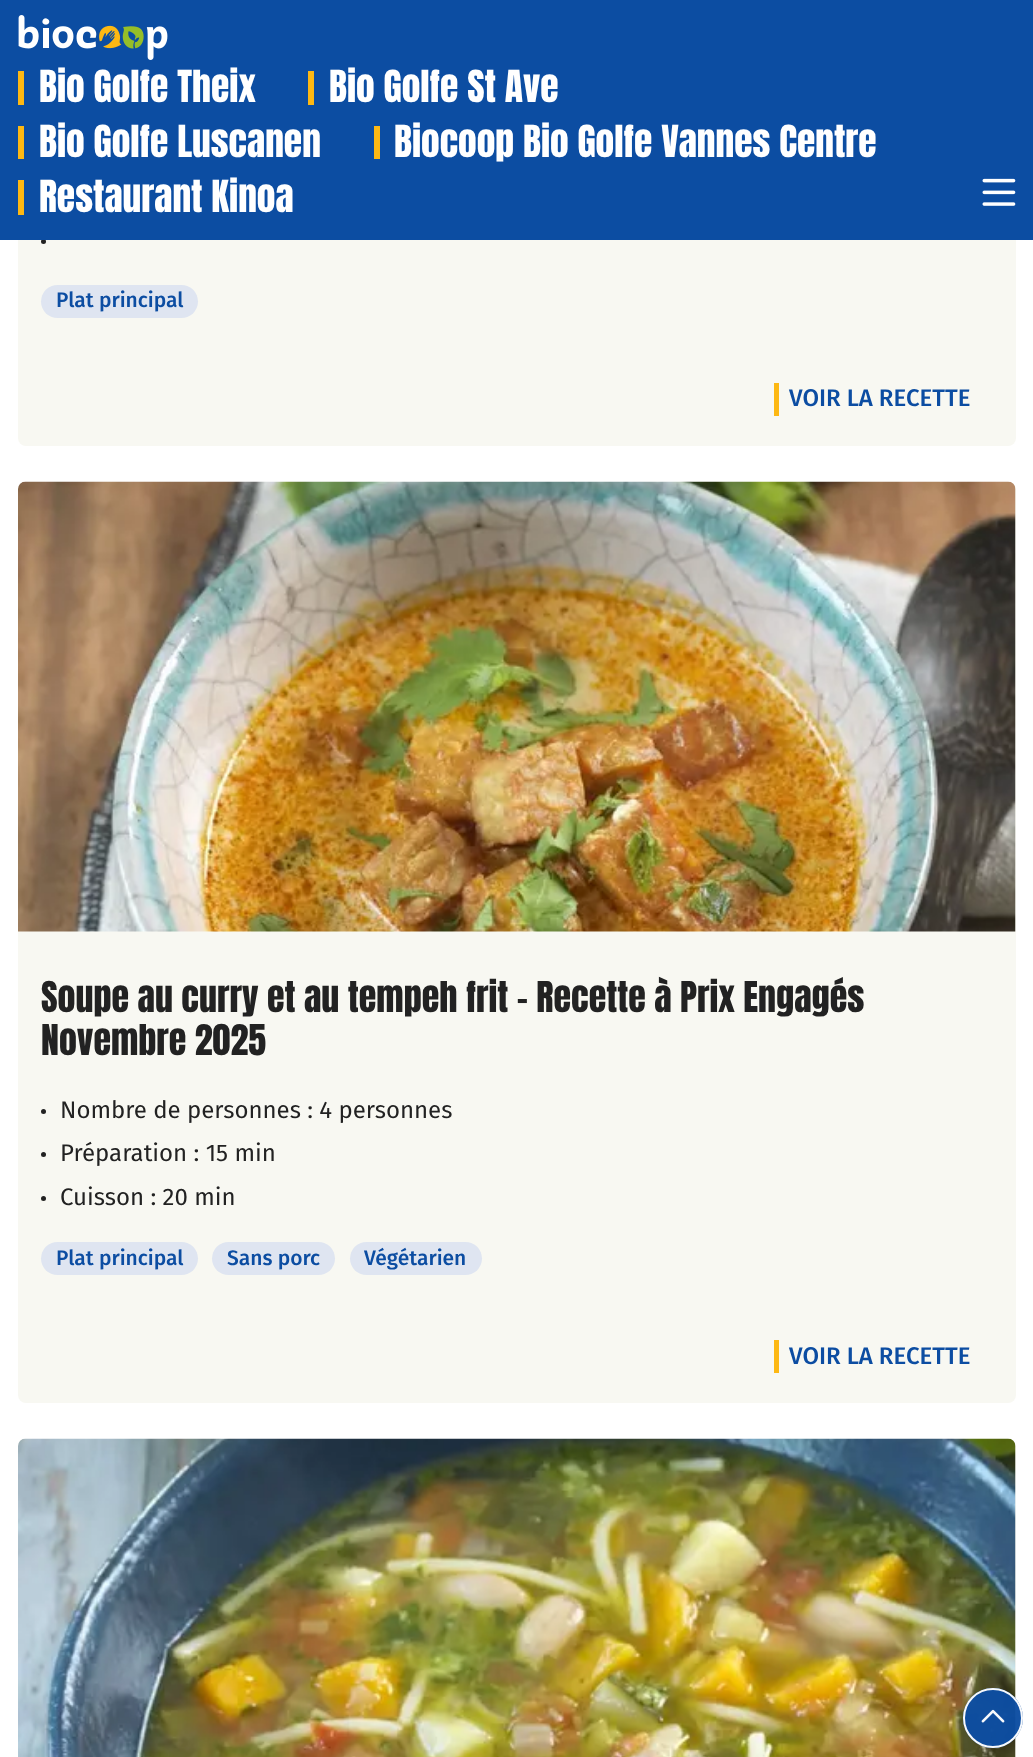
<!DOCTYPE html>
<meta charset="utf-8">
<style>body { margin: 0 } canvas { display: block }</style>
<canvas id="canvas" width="1033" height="1757"></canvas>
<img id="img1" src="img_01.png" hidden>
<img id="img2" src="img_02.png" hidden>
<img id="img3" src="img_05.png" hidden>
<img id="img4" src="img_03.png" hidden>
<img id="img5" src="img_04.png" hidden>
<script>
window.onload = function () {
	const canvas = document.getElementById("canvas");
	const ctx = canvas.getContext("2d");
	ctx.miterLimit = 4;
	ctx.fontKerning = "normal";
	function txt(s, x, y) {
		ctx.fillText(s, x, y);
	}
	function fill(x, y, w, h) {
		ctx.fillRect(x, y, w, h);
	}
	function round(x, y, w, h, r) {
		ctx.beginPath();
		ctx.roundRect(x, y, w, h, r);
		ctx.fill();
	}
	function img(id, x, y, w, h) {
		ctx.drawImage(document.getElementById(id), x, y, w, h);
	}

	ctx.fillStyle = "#FFFFFF";
	fill(0, 0, 1033, 1757);
	ctx.fillStyle = "#F8F8F2";
	round(18, -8, 998, 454, 8);
	ctx.fillStyle = "#222222";
	ctx.beginPath();
	ctx.arc(43.5, 241.5, 2.5, 0, Math.PI * 2);
	ctx.fill();
	ctx.fillStyle = "#0C4DA2";
	fill(0, 0, 1033, 240);
	img("img1", 18, 15, 150, 45);
	ctx.fillStyle = "#FDB813";
	fill(18, 71, 6, 34);
	fill(308, 71, 6, 34);
	fill(18, 126, 6, 33);
	fill(374, 126, 6, 33);
	fill(18, 180, 6, 35);
	img("img2", 982, 178, 34, 28);
	ctx.fillStyle = "#F8F8F2";
	round(18, 1439, 998, 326, 8);
	img("img3", 18, 1438, 998, 319);
	ctx.fillStyle = "rgba(12, 77, 162, 0.97)";
	ctx.beginPath();
	ctx.arc(993, 1718, 30, 0, Math.PI * 2);
	ctx.fill();
	ctx.beginPath();
	ctx.arc(993, 1718, 29, 0, Math.PI * 2);
	ctx.strokeStyle = "rgba(255, 255, 255, 0.97)";
	ctx.lineWidth = 2;
	ctx.stroke();
	img("img4", 981, 1709, 24, 14);
	ctx.fillStyle = "#DFE5F1";
	round(41, 285, 157, 33, 16.5);
	ctx.fillStyle = "#FDB813";
	fill(774, 383, 5, 33);
	ctx.fillStyle = "#F8F8F2";
	round(18, 482, 998, 921, 8);
	img("img5", 18, 481, 998, 451);
	ctx.fillStyle = "#222222";
	ctx.beginPath();
	ctx.arc(43.5, 1111.5, 2.5, 0, Math.PI * 2);
	ctx.fill();
	ctx.beginPath();
	ctx.arc(43.5, 1154.5, 2.5, 0, Math.PI * 2);
	ctx.fill();
	ctx.beginPath();
	ctx.arc(43.5, 1198.5, 2.5, 0, Math.PI * 2);
	ctx.fill();
	ctx.fillStyle = "#DFE5F1";
	round(41, 1242, 157, 33, 16.5);
	round(212, 1242, 123, 33, 16.5);
	round(350, 1242, 132, 33, 16.5);
	ctx.fillStyle = "#FDB813";
	fill(774, 1340, 5, 33);
	ctx.font = "37.5px Anton";
	ctx.fillStyle = "#FFFFFF";
	txt("Bio Golfe Theix", 39, 102);
	txt("Bio Golfe St Ave", 329, 102);
	txt("Bio Golfe Luscanen", 39, 157);
	txt("Biocoop Bio Golfe Vannes Centre", 394, 157);
	txt("Restaurant Kinoa", 39, 212);
	ctx.font = "500 21px Fira Sans";
	ctx.fillStyle = "#0C4DA2";
	txt("Plat principal", 56, 307);
	ctx.font = "500 24px Fira Sans";
	txt("VOIR LA RECETTE", 789, 406);
	ctx.font = "36px Anton";
	ctx.fillStyle = "#222222";
	txt("Soupe au curry et au tempeh frit - Recette à Prix Engagés", 41, 1012);
	txt("Novembre 2025", 41, 1055);
	ctx.font = "24px Fira Sans";
	txt("Nombre de personnes : 4 personnes", 60, 1118);
	txt("Préparation : 15 min", 60, 1161);
	txt("Cuisson : 20 min", 60, 1205);
	ctx.font = "500 21px Fira Sans";
	ctx.fillStyle = "#0C4DA2";
	txt("Plat principal", 56, 1265);
	txt("Sans porc", 227, 1265);
	txt("Végétarien", 364, 1265);
	ctx.font = "500 24px Fira Sans";
	txt("VOIR LA RECETTE", 789, 1364);
};
</script>
